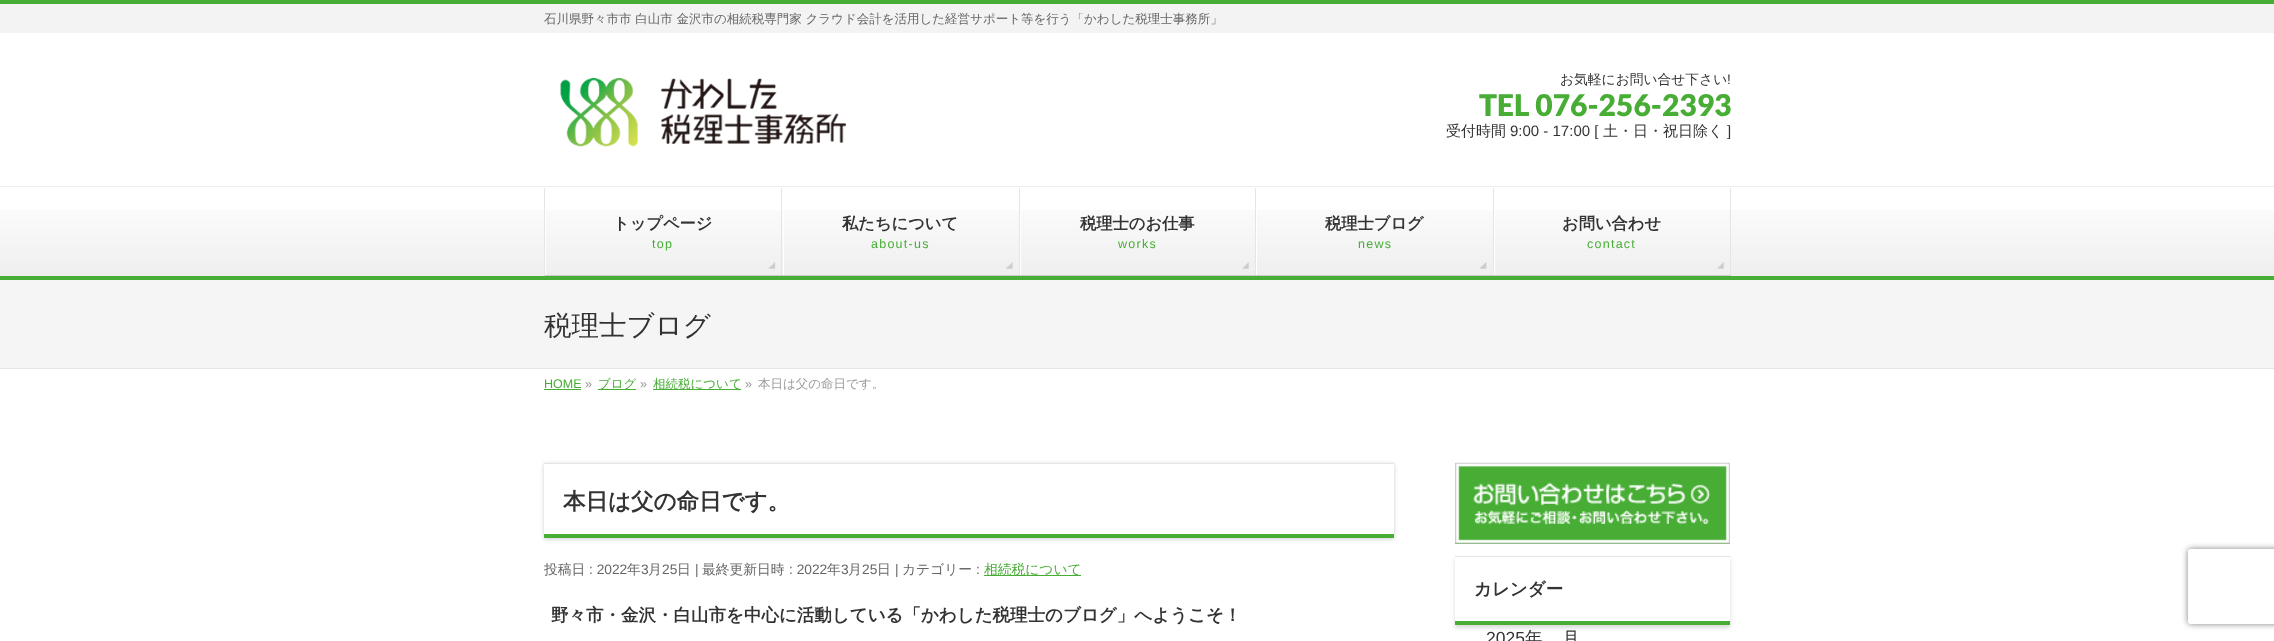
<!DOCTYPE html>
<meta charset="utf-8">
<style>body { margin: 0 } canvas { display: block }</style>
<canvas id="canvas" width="2274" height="641"></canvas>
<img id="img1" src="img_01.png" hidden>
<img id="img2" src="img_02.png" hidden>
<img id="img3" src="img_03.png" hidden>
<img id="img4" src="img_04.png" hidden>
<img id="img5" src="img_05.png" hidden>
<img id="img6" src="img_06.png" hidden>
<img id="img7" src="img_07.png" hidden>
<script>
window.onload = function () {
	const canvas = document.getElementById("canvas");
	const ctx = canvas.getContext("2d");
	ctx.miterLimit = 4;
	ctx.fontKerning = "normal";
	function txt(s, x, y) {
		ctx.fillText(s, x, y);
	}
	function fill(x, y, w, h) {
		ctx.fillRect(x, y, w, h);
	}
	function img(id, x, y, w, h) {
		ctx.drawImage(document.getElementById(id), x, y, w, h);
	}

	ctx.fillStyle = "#FFFFFF";
	fill(0, 0, 2274, 641);
	ctx.fillStyle = "#F3F3F3";
	fill(0, 4, 2274, 29);
	ctx.fillStyle = "#47AD35";
	fill(0, 0, 2274, 4);
	img("img1", 560, 78, 286, 69);
	img("img2", 0, 210, 2274, 66);
	ctx.fillStyle = "#EEEEEE";
	fill(0, 186, 2274, 1);
	ctx.fillStyle = "#47AD35";
	fill(0, 276, 2274, 4);
	ctx.fillStyle = "#E5E5E5";
	fill(544, 188, 1, 88);
	ctx.fillStyle = "#FFFFFF";
	fill(545, 210, 1, 66);
	img("img3", 768, 262, 8, 7);
	ctx.fillStyle = "#E5E5E5";
	fill(781, 188, 1, 88);
	ctx.fillStyle = "#CCCCCC";
	fill(545, 275, 238, 1);
	ctx.fillStyle = "#FFFFFF";
	fill(783, 210, 1, 66);
	img("img4", 1006, 262, 7, 7);
	ctx.fillStyle = "#E5E5E5";
	fill(1019, 188, 1, 88);
	ctx.fillStyle = "#CCCCCC";
	fill(783, 275, 237, 1);
	ctx.fillStyle = "#FFFFFF";
	fill(1020, 210, 1, 66);
	img("img5", 1242, 262, 7, 7);
	ctx.fillStyle = "#E5E5E5";
	fill(1255, 188, 1, 88);
	ctx.fillStyle = "#CCCCCC";
	fill(1020, 275, 236, 1);
	ctx.fillStyle = "#FFFFFF";
	fill(1256, 210, 1, 66);
	img("img6", 1480, 262, 7, 7);
	ctx.fillStyle = "#E5E5E5";
	fill(1493, 188, 1, 88);
	ctx.fillStyle = "#CCCCCC";
	fill(1256, 275, 238, 1);
	ctx.fillStyle = "#FFFFFF";
	fill(1494, 210, 1, 66);
	img("img5", 1717, 262, 7, 7);
	ctx.fillStyle = "#E5E5E5";
	fill(1730, 188, 1, 88);
	ctx.fillStyle = "#CCCCCC";
	fill(1494, 275, 237, 1);
	ctx.fillStyle = "#F5F5F5";
	fill(0, 280, 2274, 88);
	ctx.fillStyle = "#E5E5E5";
	fill(0, 368, 2274, 1);
	ctx.fillStyle = "#47AD35";
	fill(544, 389, 37, 1);
	fill(598, 389, 38, 1);
	fill(653, 389, 88, 1);
	ctx.save();
	ctx.beginPath();
	ctx.moveTo(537, 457);
	ctx.lineTo(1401, 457);
	ctx.lineTo(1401, 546);
	ctx.lineTo(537, 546);
	ctx.closePath();
	ctx.moveTo(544, 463);
	ctx.lineTo(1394, 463);
	ctx.lineTo(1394, 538);
	ctx.lineTo(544, 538);
	ctx.closePath();
	ctx.clip("evenodd");
	ctx.fillStyle = "rgba(0, 0, 0, 0.2)";
	ctx.filter = "blur(2px)";
	ctx.beginPath();
	ctx.rect(544, 464, 850, 75);
	ctx.fill();
	ctx.filter = "none";
	ctx.restore();
	ctx.fillStyle = "#E5E5E5";
	fill(544, 463, 850, 1);
	ctx.fillStyle = "#47AD35";
	fill(544, 534, 850, 4);
	fill(984, 575, 97, 1);
	fill(1455, 466, 275, 78);
	img("img7", 1455, 462, 275, 82);
	ctx.save();
	ctx.beginPath();
	ctx.moveTo(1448, 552);
	ctx.lineTo(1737, 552);
	ctx.lineTo(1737, 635);
	ctx.lineTo(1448, 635);
	ctx.closePath();
	ctx.moveTo(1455, 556);
	ctx.lineTo(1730, 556);
	ctx.lineTo(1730, 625);
	ctx.lineTo(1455, 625);
	ctx.closePath();
	ctx.clip("evenodd");
	ctx.fillStyle = "rgba(0, 0, 0, 0.15)";
	ctx.filter = "blur(2px)";
	ctx.beginPath();
	ctx.rect(1455, 559, 275, 69);
	ctx.fill();
	ctx.filter = "none";
	ctx.restore();
	ctx.fillStyle = "#E5E5E5";
	fill(1455, 556, 275, 1);
	ctx.fillStyle = "#47AD35";
	fill(1455, 621, 275, 4);
	ctx.save();
	ctx.beginPath();
	ctx.moveTo(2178, 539);
	ctx.lineTo(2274, 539);
	ctx.lineTo(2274, 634);
	ctx.lineTo(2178, 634);
	ctx.closePath();
	ctx.moveTo(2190.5, 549);
	ctx.lineTo(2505.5, 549);
	ctx.bezierCurveTo(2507, 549, 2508, 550, 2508, 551.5);
	ctx.lineTo(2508, 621.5);
	ctx.bezierCurveTo(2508, 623, 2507, 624, 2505.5, 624);
	ctx.lineTo(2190.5, 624);
	ctx.bezierCurveTo(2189, 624, 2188, 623, 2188, 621.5);
	ctx.lineTo(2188, 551.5);
	ctx.bezierCurveTo(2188, 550, 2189, 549, 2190.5, 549);
	ctx.closePath();
	ctx.clip("evenodd");
	ctx.fillStyle = "#808080";
	ctx.filter = "blur(3px)";
	ctx.beginPath();
	ctx.roundRect(2188, 549, 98, 75, 2.5);
	ctx.fill();
	ctx.filter = "none";
	ctx.restore();
	ctx.font = "500 12.5px WenQuanYi Zen Hei";
	ctx.fillStyle = "#666666";
	txt("石川県野々市市 白山市 金沢市の相続税専門家 クラウド会計を活用した経営サポート等を行う「かわした税理士事務所」", 544, 23);
	ctx.font = "500 13.75px WenQuanYi Zen Hei";
	ctx.fillStyle = "#333333";
	txt("お気軽にお問い合せ下さい", 1560, 84);
	ctx.font = "13.75px Liberation Sans";
	txt("!", 1727, 84);
	ctx.font = "900 30px Lato";
	ctx.fillStyle = "#47AD35";
	txt("TEL 076-256-2393", 1479, 116);
	ctx.font = "500 15px WenQuanYi Zen Hei";
	ctx.fillStyle = "#333333";
	txt("受付時間", 1446, 136);
	ctx.font = "15px Liberation Sans";
	txt("9:00 - 17:00 [", 1510, 136);
	ctx.font = "500 15px WenQuanYi Zen Hei";
	txt("土・日・祝日除く", 1603, 136);
	ctx.font = "15px Liberation Sans";
	txt("]", 1727, 136);
	ctx.font = "bold 16.25px WenQuanYi Zen Hei";
	txt("トップページ", 613, 229);
	ctx.letterSpacing = "1.25px";
	ctx.font = "12.5px Liberation Sans";
	ctx.fillStyle = "#47AD35";
	txt("top", 652, 248);
	ctx.letterSpacing = "0px";
	ctx.font = "bold 16.25px WenQuanYi Zen Hei";
	ctx.fillStyle = "#333333";
	txt("私たちについて", 842, 229);
	ctx.letterSpacing = "1.25px";
	ctx.font = "12.5px Liberation Sans";
	ctx.fillStyle = "#47AD35";
	txt("about-us", 871, 248);
	ctx.letterSpacing = "0px";
	ctx.font = "bold 16.25px WenQuanYi Zen Hei";
	ctx.fillStyle = "#333333";
	txt("税理士のお仕事", 1080, 229);
	ctx.letterSpacing = "1.25px";
	ctx.font = "12.5px Liberation Sans";
	ctx.fillStyle = "#47AD35";
	txt("works", 1118, 248);
	ctx.letterSpacing = "0px";
	ctx.font = "bold 16.25px WenQuanYi Zen Hei";
	ctx.fillStyle = "#333333";
	txt("税理士ブログ", 1325, 229);
	ctx.letterSpacing = "1.25px";
	ctx.font = "12.5px Liberation Sans";
	ctx.fillStyle = "#47AD35";
	txt("news", 1358, 248);
	ctx.letterSpacing = "0px";
	ctx.font = "bold 16.25px WenQuanYi Zen Hei";
	ctx.fillStyle = "#333333";
	txt("お問い合わせ", 1562, 229);
	ctx.letterSpacing = "1.25px";
	ctx.font = "12.5px Liberation Sans";
	ctx.fillStyle = "#47AD35";
	txt("contact", 1587, 248);
	ctx.letterSpacing = "0px";
	ctx.font = "500 27.5px WenQuanYi Zen Hei";
	ctx.fillStyle = "#333333";
	txt("税理士ブログ", 544, 335);
	ctx.font = "12.5px Liberation Sans";
	ctx.fillStyle = "#47AD35";
	txt("HOME", 544, 388);
	ctx.fillStyle = "#999999";
	txt("»", 585, 388);
	ctx.font = "500 12.5px WenQuanYi Zen Hei";
	ctx.fillStyle = "#47AD35";
	txt("ブログ", 598, 388);
	ctx.font = "12.5px Liberation Sans";
	ctx.fillStyle = "#999999";
	txt("»", 640, 388);
	ctx.font = "500 12.5px WenQuanYi Zen Hei";
	ctx.fillStyle = "#47AD35";
	txt("相続税について", 653, 388);
	ctx.font = "12.5px Liberation Sans";
	ctx.fillStyle = "#999999";
	txt("»", 745, 388);
	ctx.font = "500 12.5px WenQuanYi Zen Hei";
	txt("本日は父の命日です。", 758, 388);
	ctx.font = "bold 22.5px WenQuanYi Zen Hei";
	ctx.fillStyle = "#333333";
	txt("本日は父の命日です。", 563, 509);
	ctx.font = "500 13.75px WenQuanYi Zen Hei";
	ctx.fillStyle = "#666666";
	txt("投稿日", 544, 574);
	ctx.font = "13.75px Liberation Sans";
	txt(": 2022", 589, 574);
	ctx.font = "500 13.75px WenQuanYi Zen Hei";
	txt("年", 627, 574);
	ctx.font = "13.75px Liberation Sans";
	txt("3", 641, 574);
	ctx.font = "500 13.75px WenQuanYi Zen Hei";
	txt("月", 648, 574);
	ctx.font = "13.75px Liberation Sans";
	txt("25", 662, 574);
	ctx.font = "500 13.75px WenQuanYi Zen Hei";
	txt("日", 677, 574);
	ctx.font = "13.75px Liberation Sans";
	txt("|", 695, 574);
	ctx.font = "500 13.75px WenQuanYi Zen Hei";
	txt("最終更新日時", 702, 574);
	ctx.font = "13.75px Liberation Sans";
	txt(": 2022", 789, 574);
	ctx.font = "500 13.75px WenQuanYi Zen Hei";
	txt("年", 827, 574);
	ctx.font = "13.75px Liberation Sans";
	txt("3", 841, 574);
	ctx.font = "500 13.75px WenQuanYi Zen Hei";
	txt("月", 848, 574);
	ctx.font = "13.75px Liberation Sans";
	txt("25", 862, 574);
	ctx.font = "500 13.75px WenQuanYi Zen Hei";
	txt("日", 877, 574);
	ctx.font = "13.75px Liberation Sans";
	txt("|", 895, 574);
	ctx.font = "500 13.75px WenQuanYi Zen Hei";
	txt("カテゴリー", 902, 574);
	ctx.font = "13.75px Liberation Sans";
	txt(":", 976, 574);
	ctx.font = "500 13.75px WenQuanYi Zen Hei";
	ctx.fillStyle = "#47AD35";
	txt("相続税について", 984, 574);
	ctx.font = "bold 17.5px WenQuanYi Zen Hei";
	ctx.fillStyle = "#333333";
	txt("野々市・金沢・白山市を中心に活動している「かわした税理士のブログ」へようこそ！", 551, 621);
	txt("カレンダー", 1474, 595);
	ctx.font = "17.5px Liberation Sans";
	txt("2025", 1486, 644);
	ctx.font = "500 17.5px WenQuanYi Zen Hei";
	txt("年", 1525, 644);
	txt("月", 1562, 644);
};
</script>
